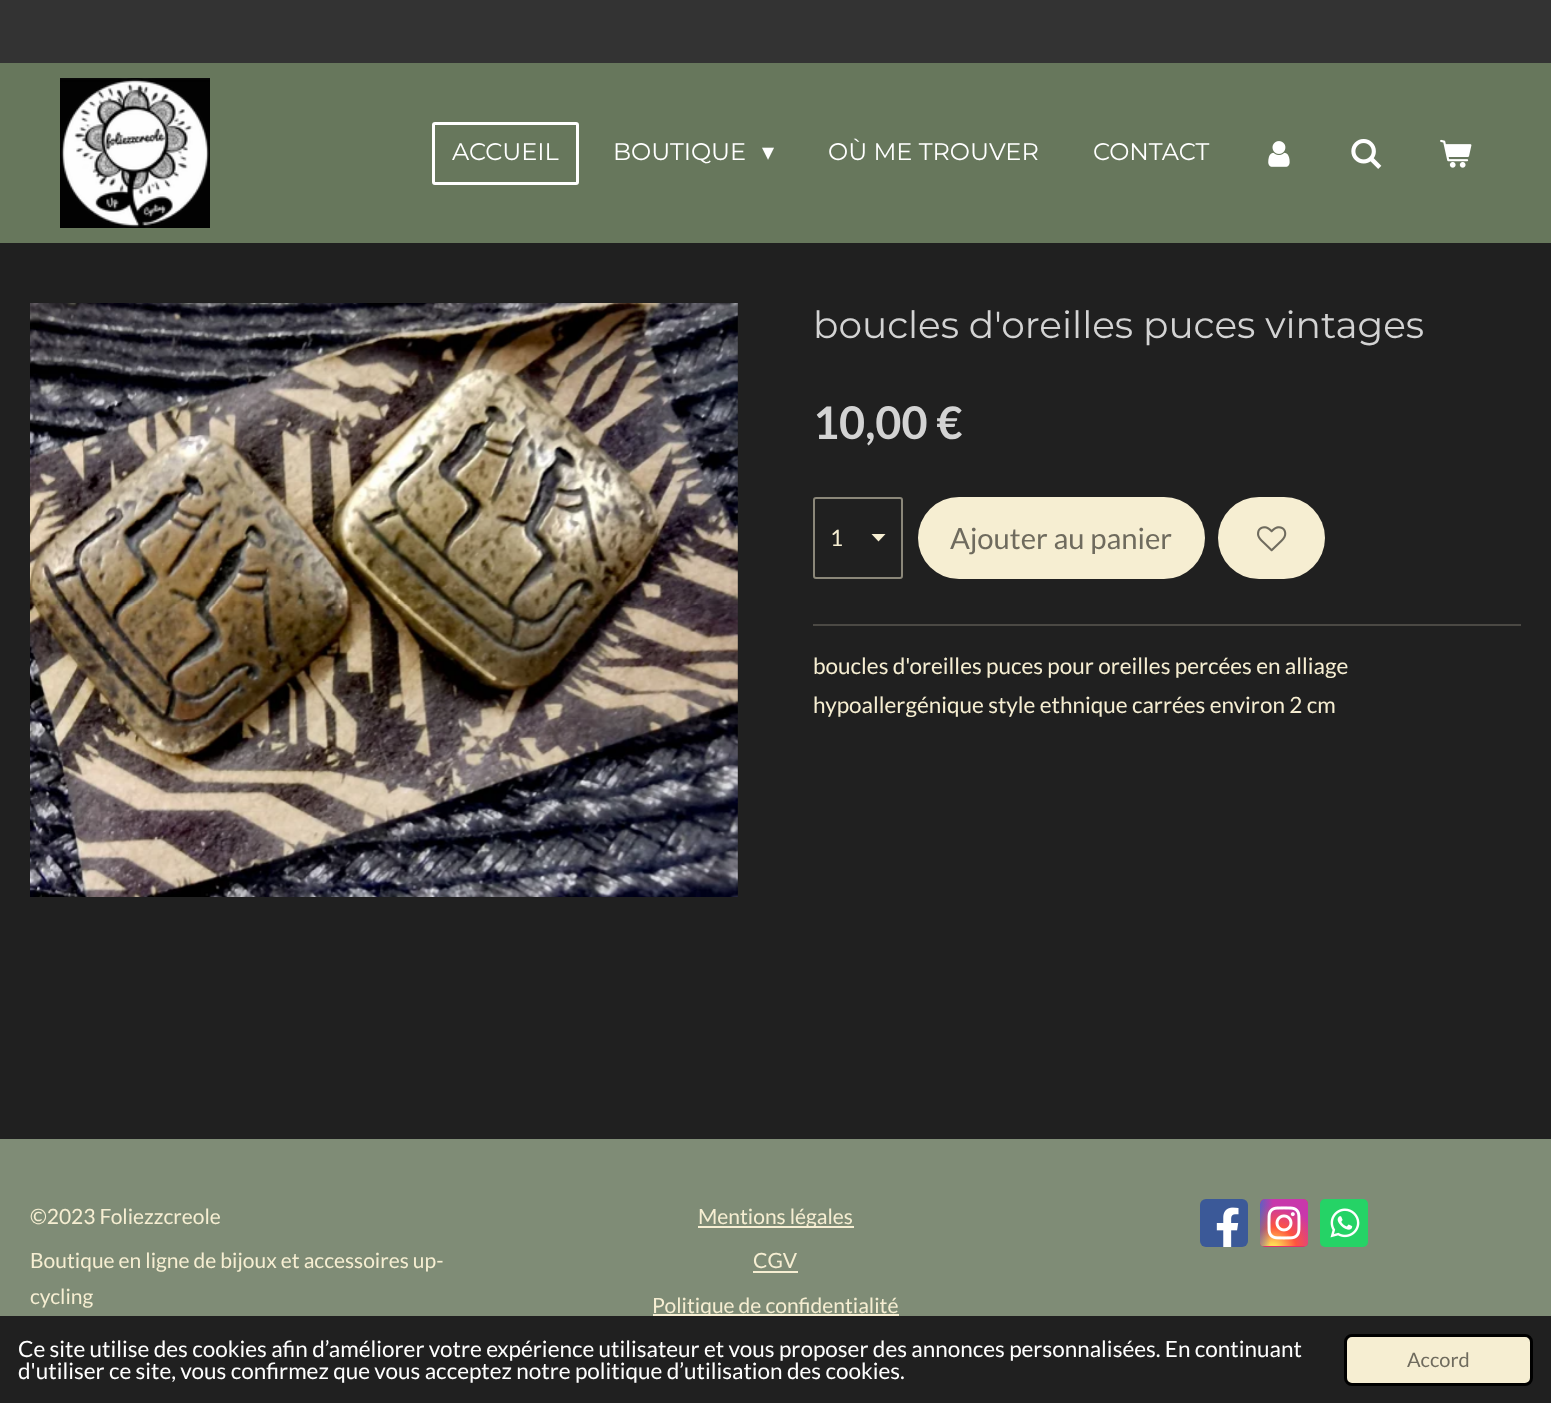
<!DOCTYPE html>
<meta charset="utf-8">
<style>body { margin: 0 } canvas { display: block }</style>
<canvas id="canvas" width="1551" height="1403"></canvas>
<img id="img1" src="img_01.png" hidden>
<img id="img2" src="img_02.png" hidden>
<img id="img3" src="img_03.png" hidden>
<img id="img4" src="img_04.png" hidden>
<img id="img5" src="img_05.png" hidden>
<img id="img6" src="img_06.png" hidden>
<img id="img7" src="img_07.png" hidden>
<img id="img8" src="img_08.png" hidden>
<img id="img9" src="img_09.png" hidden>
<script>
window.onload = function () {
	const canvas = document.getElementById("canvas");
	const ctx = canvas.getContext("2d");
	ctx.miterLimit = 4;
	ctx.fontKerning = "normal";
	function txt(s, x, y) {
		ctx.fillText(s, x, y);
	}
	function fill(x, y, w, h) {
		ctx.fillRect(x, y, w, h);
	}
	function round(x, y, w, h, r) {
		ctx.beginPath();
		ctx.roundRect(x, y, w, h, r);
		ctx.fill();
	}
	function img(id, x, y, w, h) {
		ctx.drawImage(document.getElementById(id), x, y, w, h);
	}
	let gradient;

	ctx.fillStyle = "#202020";
	fill(0, 0, 1551, 1403);
	ctx.fillStyle = "#67775C";
	fill(0, 63, 1551, 180);
	ctx.fillStyle = "#333333";
	fill(0, 0, 1551, 63);
	img("img1", 60, 78, 150, 150);
	ctx.beginPath();
	ctx.roundRect(433.5, 123.5, 144, 60, 1.5);
	ctx.strokeStyle = "#FFFFFF";
	ctx.lineWidth = 3;
	ctx.stroke();
	img("img2", 1268, 141, 22, 26);
	img("img3", 1351, 139, 31, 30);
	img("img4", 1440, 139, 32, 29);
	img("img5", 30, 303, 708, 594);
	ctx.fillStyle = "#F6EED2";
	ctx.beginPath();
	ctx.moveTo(878.5, 541.5);
	ctx.lineTo(871.5, 534);
	ctx.lineTo(885.5, 534);
	ctx.closePath();
	ctx.fill();
	ctx.beginPath();
	ctx.roundRect(814, 498, 88, 80, 2);
	ctx.strokeStyle = "#8B8779";
	ctx.lineWidth = 2;
	ctx.stroke();
	round(918, 497, 287, 82, 41);
	round(1218, 497, 107, 82, 41);
	img("img6", 1257, 526, 30, 26);
	ctx.fillStyle = "#4B4944";
	fill(813, 624, 708, 2);
	ctx.fillStyle = "#7F8C76";
	fill(0, 1139, 1551, 177);
	ctx.fillStyle = "#F6EED2";
	fill(698, 1226, 156, 2);
	fill(753, 1271, 45, 2);
	fill(653, 1314, 246, 2);
	ctx.fillStyle = "#3B5998";
	round(1200, 1199, 48, 48, 6);
	img("img7", 1216, 1207, 23, 40);
	ctx.fillStyle = "#E1306C";
	round(1260, 1199, 48, 48, 5);
	ctx.save();
	ctx.beginPath();
	ctx.roundRect(1260, 1199, 48, 48, 5);
	ctx.clip();
	gradient = ctx.createRadialGradient(1273, 1334.16, 0, 1273, 1334.16, 47);
	gradient.addColorStop(0, "#FFDD55");
	gradient.addColorStop(0.1, "#FFDD55");
	gradient.addColorStop(0.5, "#FF543E");
	gradient.addColorStop(1, "#C837AB");
	ctx.fillStyle = gradient;
	ctx.beginPath();
	ctx.roundRect(1260, 1199, 48, 47, [5, 5, 0, 0]);
	ctx.save();
	ctx.clip();
	ctx.scale(1, 44 / 47);
	ctx.fillRect(0, 0, 1551, 1499);
	ctx.restore();
	gradient = ctx.createRadialGradient(1252, 293.51, 0, 1252, 293.51, 21);
	gradient.addColorStop(0, "#3771C8");
	gradient.addColorStop(0.13, "#3771C8");
	gradient.addColorStop(1, "rgba(55, 113, 200, 0)");
	ctx.fillStyle = gradient;
	ctx.beginPath();
	ctx.roundRect(1260, 1199, 48, 47, [5, 5, 0, 0]);
	ctx.save();
	ctx.clip();
	ctx.scale(1, 86 / 21);
	ctx.fillRect(0, 0, 1551, 343);
	ctx.restore();
	ctx.restore();
	img("img8", 1267, 1206, 34, 34);
	ctx.fillStyle = "#25D366";
	round(1320, 1199, 48, 48, 5);
	img("img9", 1330, 1208, 30, 30);
	ctx.fillStyle = "#F6EED2";
	ctx.beginPath();
	ctx.roundRect(1345.5, 1335.5, 186, 49, 6.5);
	ctx.fill();
	ctx.strokeStyle = "#000000";
	ctx.lineWidth = 3;
	ctx.stroke();
	ctx.font = "24px Montserrat";
	ctx.fillStyle = "#FFFFFF";
	txt("ACCUEIL", 452, 160);
	txt("BOUTIQUE", 613, 160);
	ctx.font = "24px DejaVu Sans";
	txt("▾", 762, 160);
	ctx.font = "24px Montserrat";
	txt("OÙ ME TROUVER", 828, 160);
	txt("CONTACT", 1093, 160);
	ctx.font = "37.5px Montserrat";
	ctx.fillStyle = "#D3D3D3";
	txt("boucles d'oreilles puces vintages", 813, 338);
	ctx.font = "bold 45px Lato";
	txt("10,00 €", 813, 439);
	ctx.font = "22.5px Lato";
	ctx.fillStyle = "#F6EED2";
	txt("1", 830, 546);
	ctx.font = "29.25px Lato";
	ctx.fillStyle = "#6F6B5E";
	txt("Ajouter au panier", 950, 549);
	ctx.font = "22.5px Lato";
	ctx.fillStyle = "#F6EED2";
	txt("boucles d'oreilles puces pour oreilles percées en alliage", 813, 674);
	txt("hypoallergénique style ethnique carrées environ 2 cm", 813, 713);
	ctx.font = "21px Lato";
	txt("©2023 Foliezzcreole", 30, 1224);
	txt("Boutique en ligne de bijoux et accessoires up-", 30, 1268);
	txt("cycling", 30, 1304);
	txt("Mentions légales", 698, 1224);
	txt("CGV", 753, 1268);
	txt("Politique de confidentialité", 652, 1313);
	ctx.fillStyle = "#222222";
	fill(708, 1316, 3, 1);
	ctx.font = "22.5px Lato";
	ctx.fillStyle = "#FFFFFF";
	txt("Ce site utilise des cookies afin d’améliorer votre expérience utilisateur et vous proposer des annonces personnalisées. En continuant", 18, 1357);
	txt("d'utiliser ce site, vous confirmez que vous acceptez notre politique d’utilisation des cookies.", 18, 1379);
	ctx.font = "20px Lato";
	ctx.fillStyle = "#6F6B5E";
	txt("Accord", 1407, 1367);
};
</script>
